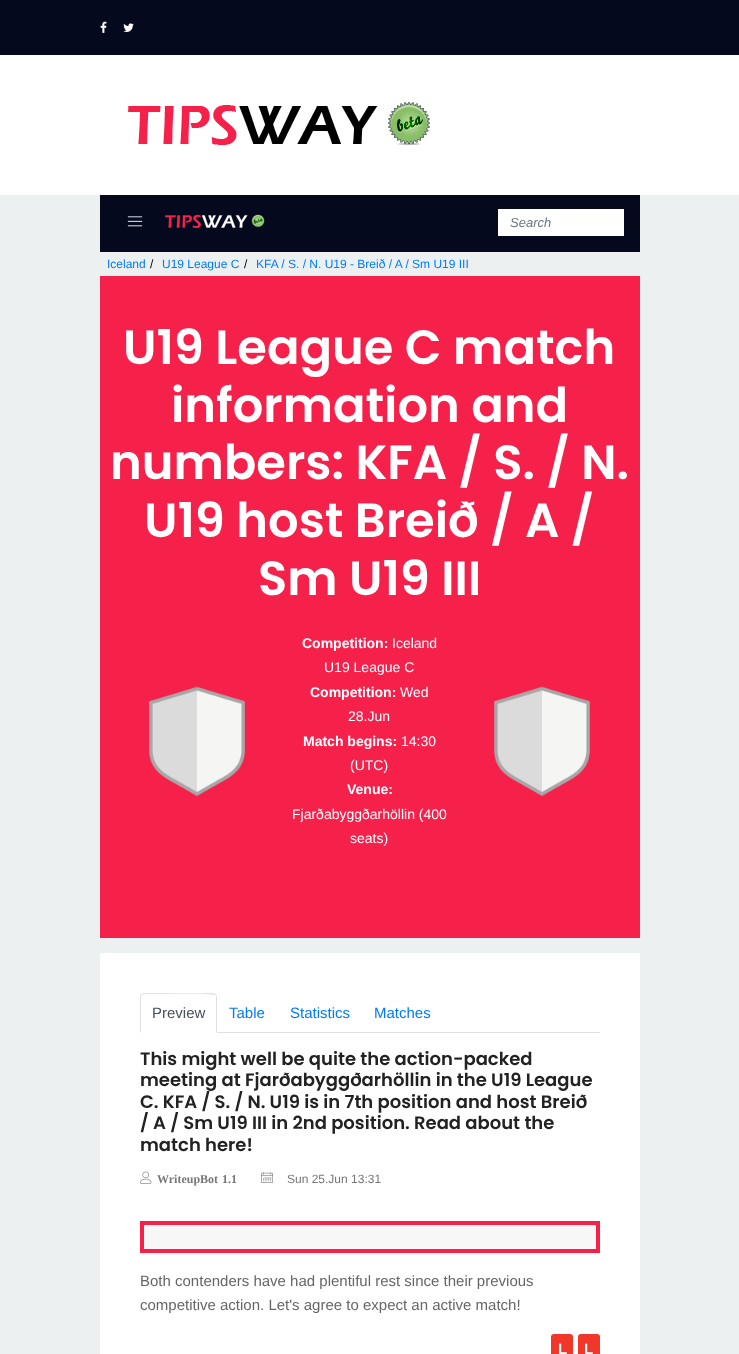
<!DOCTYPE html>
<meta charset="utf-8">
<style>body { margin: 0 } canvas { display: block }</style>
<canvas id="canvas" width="739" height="1354"></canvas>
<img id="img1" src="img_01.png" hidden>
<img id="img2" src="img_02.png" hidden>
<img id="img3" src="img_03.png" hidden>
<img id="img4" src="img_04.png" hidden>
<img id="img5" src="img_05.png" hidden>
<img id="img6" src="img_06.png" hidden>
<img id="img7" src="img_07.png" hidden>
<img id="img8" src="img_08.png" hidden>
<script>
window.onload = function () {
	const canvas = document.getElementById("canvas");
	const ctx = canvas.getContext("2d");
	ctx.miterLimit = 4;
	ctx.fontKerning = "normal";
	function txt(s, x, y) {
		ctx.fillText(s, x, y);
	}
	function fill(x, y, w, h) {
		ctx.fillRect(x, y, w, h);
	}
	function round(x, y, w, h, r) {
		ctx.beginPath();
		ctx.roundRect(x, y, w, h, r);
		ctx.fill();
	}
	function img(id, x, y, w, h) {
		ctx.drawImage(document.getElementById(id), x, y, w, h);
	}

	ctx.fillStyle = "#ECF0F1";
	fill(0, 0, 739, 1354);
	ctx.fillStyle = "#04091E";
	fill(0, 0, 739, 55);
	img("img1", 100, 21, 7, 12);
	img("img2", 123, 23, 11, 9);
	ctx.fillStyle = "#FFFFFF";
	fill(0, 55, 739, 140);
	img("img3", 128, 102, 302, 43);
	ctx.fillStyle = "#04091E";
	fill(100, 195, 540, 57);
	img("img4", 127, 216, 16, 11);
	img("img5", 165, 214, 100, 14);
	ctx.fillStyle = "#FFFFFF";
	fill(498, 209, 126, 27);
	ctx.fillStyle = "#F6214B";
	fill(100, 276, 540, 662);
	img("img6", 149, 686, 96, 111);
	img("img6", 494, 686, 96, 111);
	ctx.fillStyle = "#FFFFFF";
	fill(100, 953, 540, 401);
	ctx.fillStyle = "#DEE2E6";
	fill(217, 1032, 383, 1);
	ctx.beginPath();
	ctx.moveTo(144, 993);
	ctx.lineTo(141, 994);
	ctx.lineTo(142, 995);
	ctx.lineTo(144, 994);
	ctx.lineTo(156, 994);
	ctx.bezierCurveTo(162, 994, 213, 993, 215, 995);
	ctx.lineTo(216, 994);
	ctx.lineTo(213, 993);
	ctx.closePath();
	ctx.fill();
	ctx.beginPath();
	ctx.moveTo(217, 1033);
	ctx.lineTo(217, 997);
	ctx.bezierCurveTo(217, 996, 216.5, 995, 216, 994);
	ctx.lineTo(215, 995);
	ctx.bezierCurveTo(216, 995, 216, 996, 216, 997);
	ctx.lineTo(216, 1032);
	ctx.closePath();
	ctx.fill();
	ctx.fillStyle = "#FFFFFF";
	ctx.beginPath();
	ctx.moveTo(217, 1033);
	ctx.lineTo(216, 1032);
	ctx.lineTo(141, 1032);
	ctx.lineTo(140, 1033);
	ctx.closePath();
	ctx.fill();
	ctx.fillStyle = "#DEE2E6";
	ctx.beginPath();
	ctx.moveTo(140, 1033);
	ctx.lineTo(141, 1032);
	ctx.lineTo(141, 997);
	ctx.bezierCurveTo(141, 996, 141, 995, 142, 995);
	ctx.lineTo(141, 994);
	ctx.bezierCurveTo(140.5, 995, 140, 996, 140, 997);
	ctx.closePath();
	ctx.fill();
	img("img7", 140, 1171, 12, 13);
	img("img8", 261, 1172, 12, 11);
	ctx.fillStyle = "#F7F7F7";
	ctx.beginPath();
	ctx.rect(142, 1223, 456, 28);
	ctx.fill();
	ctx.strokeStyle = "#F6214B";
	ctx.lineWidth = 4;
	ctx.stroke();
	ctx.fillStyle = "#F1372A";
	round(551, 1334, 22, 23, 3);
	round(578, 1334, 22, 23, 3);
	ctx.font = "italic 13px Liberation Sans";
	ctx.fillStyle = "#6C757D";
	txt("Search", 510, 227);
	ctx.font = "12px Liberation Sans";
	ctx.fillStyle = "#007BFF";
	txt("Iceland", 107, 268);
	ctx.fillStyle = "#000000";
	txt("/", 150, 268);
	ctx.fillStyle = "#007BFF";
	txt("U19 League C", 162, 268);
	ctx.fillStyle = "#000000";
	txt("/", 244, 268);
	ctx.fillStyle = "#007BFF";
	txt("KFA / S. / N. U19 - Breið / A / Sm U19 III", 256, 268);
	ctx.font = "600 48px Poppins";
	ctx.fillStyle = "#FFFFFF";
	txt("U19 League C match", 123, 364);
	txt("information and", 171, 422);
	txt("numbers: KFA / S. / N.", 110, 479);
	txt("U19 host Breið / A /", 144, 537);
	txt("Sm U19 III", 258, 595);
	ctx.font = "bold 14px Liberation Sans";
	txt("Competition:", 302, 648);
	ctx.font = "14px Liberation Sans";
	txt("Iceland", 392, 648);
	txt("U19 League C", 324, 672);
	ctx.font = "bold 14px Liberation Sans";
	txt("Competition:", 310, 697);
	ctx.font = "14px Liberation Sans";
	txt("Wed", 400, 697);
	txt("28.Jun", 348, 721);
	ctx.font = "bold 14px Liberation Sans";
	txt("Match begins:", 303, 746);
	ctx.font = "14px Liberation Sans";
	txt("14:30", 401, 746);
	txt("(UTC)", 350, 770);
	ctx.font = "bold 14px Liberation Sans";
	txt("Venue:", 347, 794);
	ctx.font = "14px Liberation Sans";
	txt("Fjarðabyggðarhöllin (400", 292, 819);
	txt("seats)", 350, 843);
	ctx.font = "15px Liberation Sans";
	ctx.fillStyle = "#495057";
	txt("Preview", 152, 1018);
	ctx.fillStyle = "#007BFF";
	txt("Table", 229, 1018);
	txt("Statistics", 290, 1018);
	txt("Matches", 374, 1018);
	ctx.font = "600 18px Poppins";
	ctx.fillStyle = "#222222";
	txt("This might well be quite the action-packed", 140, 1065);
	txt("meeting at Fjarðabyggðarhöllin in the U19 League", 140, 1086);
	txt("C. KFA / S. / N. U19 is in 7th position and host Breið", 140, 1108);
	txt("/ A / Sm U19 III in 2nd position. Read about the", 140, 1129);
	txt("match here!", 140, 1151);
	ctx.wordSpacing = "1px";
	ctx.font = "bold 12px Liberation Serif";
	ctx.fillStyle = "#777777";
	txt("WriteupBot 1.1", 157, 1183);
	ctx.wordSpacing = "0px";
	ctx.font = "12px Liberation Sans";
	txt("Sun 25.Jun 13:31", 287, 1183);
	ctx.font = "15px Liberation Sans";
	ctx.fillStyle = "#666666";
	txt("Both contenders have had plentiful rest since their previous", 140, 1286);
	txt("competitive action. Let's agree to expect an active match!", 140, 1310);
	ctx.font = "bold 15px Liberation Sans";
	ctx.fillStyle = "#FFFFFF";
	txt("L", 558, 1354);
	txt("L", 584, 1354);
};
</script>
